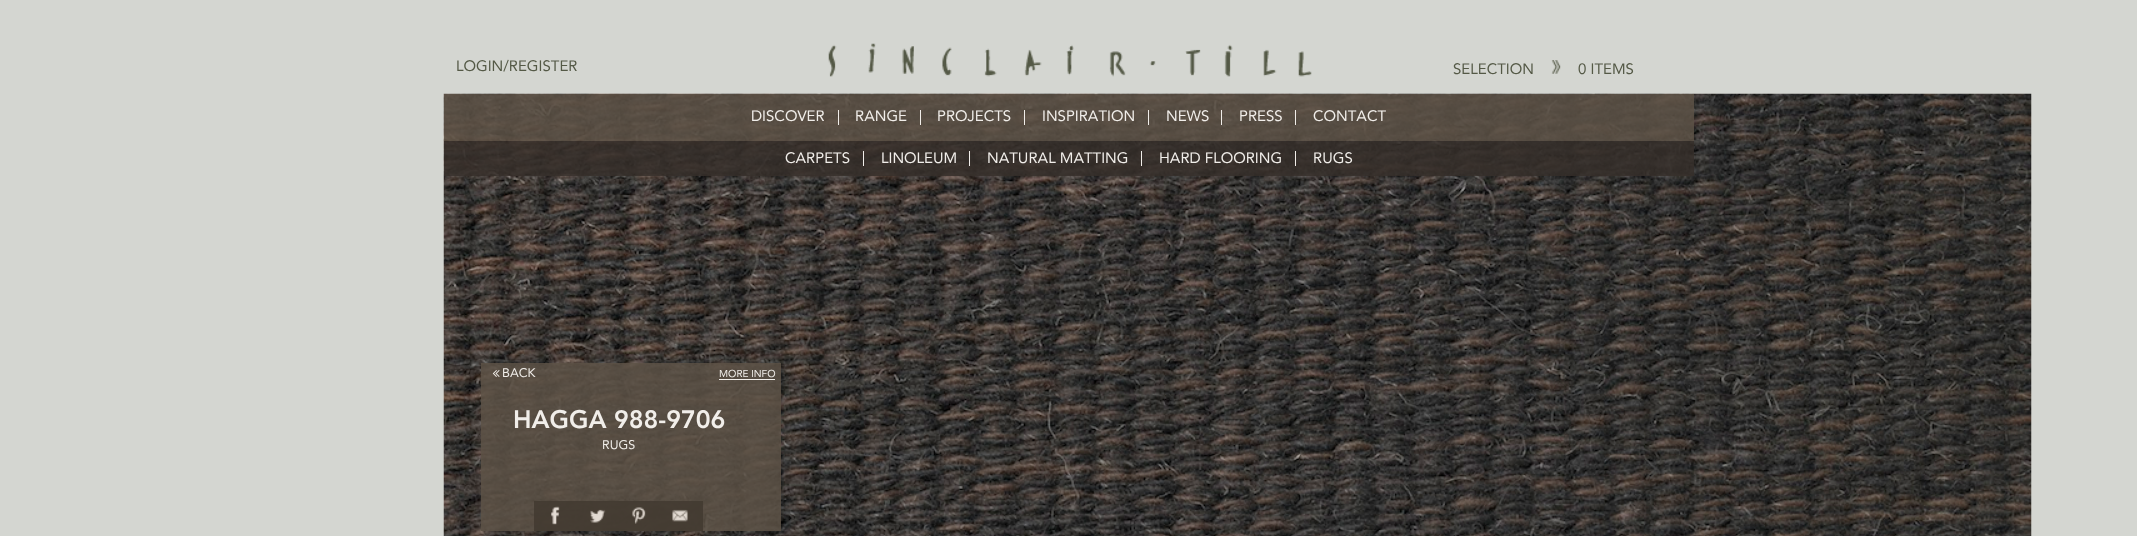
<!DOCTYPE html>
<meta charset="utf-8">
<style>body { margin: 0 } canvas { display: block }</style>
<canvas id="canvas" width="2137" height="536"></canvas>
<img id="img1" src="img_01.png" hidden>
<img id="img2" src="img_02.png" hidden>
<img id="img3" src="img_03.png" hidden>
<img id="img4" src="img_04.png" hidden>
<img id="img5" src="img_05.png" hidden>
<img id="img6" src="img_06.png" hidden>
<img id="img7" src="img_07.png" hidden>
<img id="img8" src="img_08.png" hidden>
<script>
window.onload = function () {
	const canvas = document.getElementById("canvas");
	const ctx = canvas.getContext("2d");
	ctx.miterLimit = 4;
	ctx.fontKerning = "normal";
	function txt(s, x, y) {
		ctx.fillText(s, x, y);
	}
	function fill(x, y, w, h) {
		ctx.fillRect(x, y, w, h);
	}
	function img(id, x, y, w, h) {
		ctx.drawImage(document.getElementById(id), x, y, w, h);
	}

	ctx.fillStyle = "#D4D6D1";
	fill(0, 0, 2137, 536);
	img("img1", 828, 43, 484, 34);
	img("img2", 1551, 60, 10, 14);
	img("img3", 443, 93, 1589, 443);
	ctx.fillStyle = "rgba(93, 82, 71, 0.85)";
	fill(444, 94, 1250, 47);
	ctx.fillStyle = "#F1EEEA";
	fill(838, 110, 1, 15);
	fill(920, 110, 1, 15);
	fill(1024, 110, 1, 15);
	fill(1148, 110, 1, 15);
	fill(1221, 110, 1, 15);
	fill(1295, 110, 1, 15);
	ctx.fillStyle = "rgba(54, 47, 42, 0.85)";
	fill(444, 141, 1250, 35);
	ctx.fillStyle = "#F1EEEA";
	fill(863, 151, 1, 15);
	fill(969, 151, 1, 15);
	fill(1141, 151, 1, 15);
	fill(1295, 151, 1, 15);
	ctx.fillStyle = "rgba(93, 82, 71, 0.85)";
	fill(481, 363, 300, 168);
	img("img4", 492, 370, 8, 7);
	ctx.fillStyle = "#F1EEEA";
	fill(719, 379, 56, 1);
	ctx.fillStyle = "rgba(66, 57, 48, 0.85)";
	fill(534, 501, 169, 30);
	img("img5", 551, 506, 9, 19);
	img("img6", 590, 509, 16, 14);
	img("img7", 632, 507, 14, 17);
	img("img8", 672, 509, 16, 13);
	ctx.font = "15px Avenir";
	ctx.fillStyle = "#545946";
	txt("LOGIN/REGISTER", 456, 71);
	txt("SELECTION", 1453, 74);
	txt("0 ITEMS", 1578, 74);
	ctx.fillStyle = "#F1EEEA";
	txt("DISCOVER", 751, 121);
	txt("RANGE", 855, 121);
	txt("PROJECTS", 937, 121);
	txt("INSPIRATION", 1042, 121);
	txt("NEWS", 1166, 121);
	txt("PRESS", 1239, 121);
	txt("CONTACT", 1313, 121);
	txt("CARPETS", 785, 163);
	txt("LINOLEUM", 881, 163);
	txt("NATURAL MATTING", 987, 163);
	txt("HARD FLOORING", 1159, 163);
	txt("RUGS", 1313, 163);
	ctx.font = "12.5px Avenir";
	txt("BACK", 502, 377);
	ctx.font = "10px Avenir";
	txt("MORE INFO", 719, 377);
	ctx.font = "900 25px Avenir";
	txt("HAGGA 988-9706", 513, 428);
	ctx.font = "12.5px Avenir";
	txt("RUGS", 602, 449);
};
</script>
